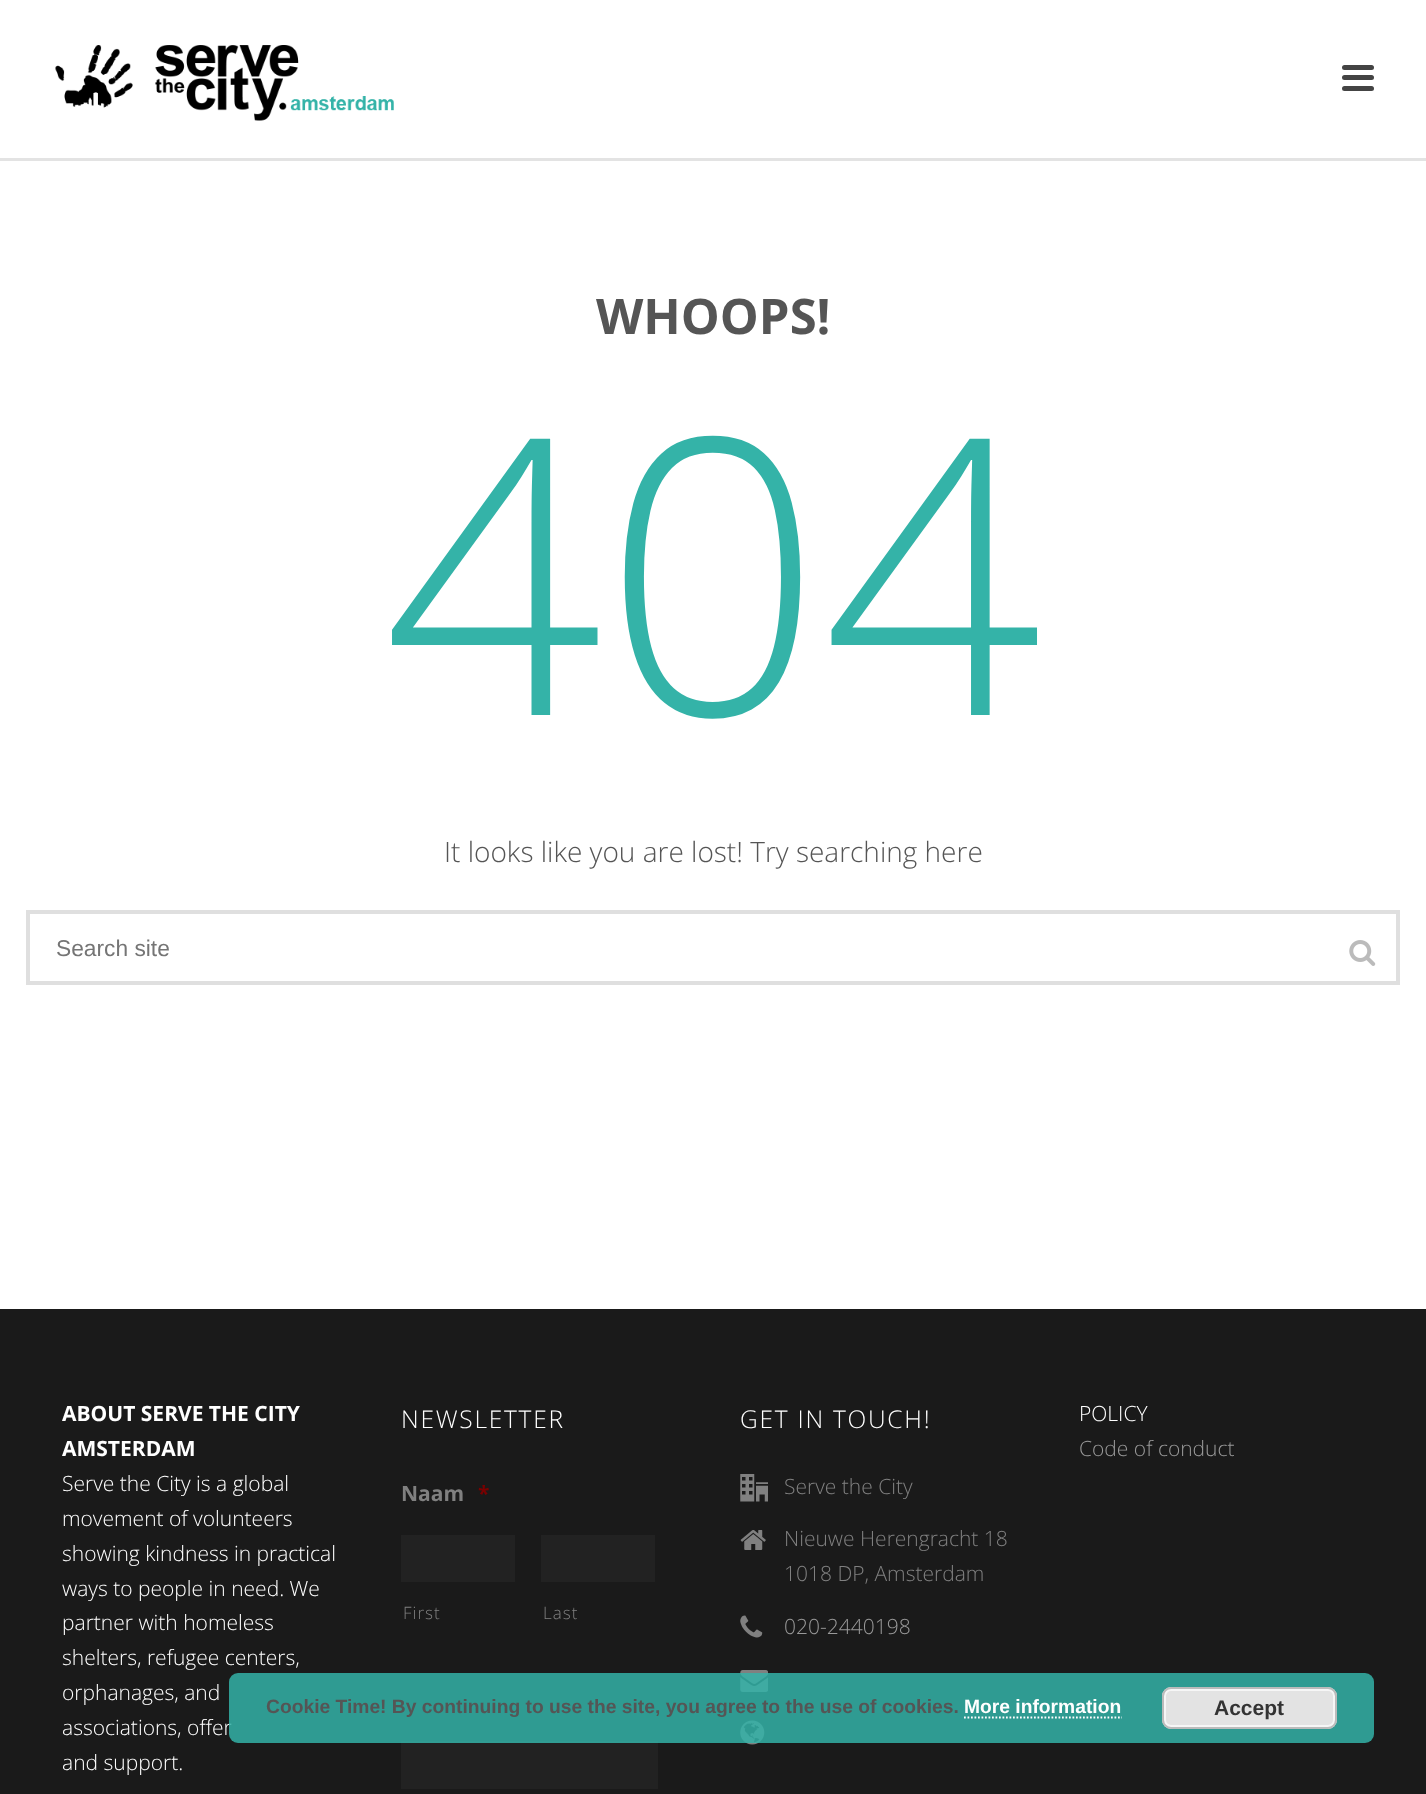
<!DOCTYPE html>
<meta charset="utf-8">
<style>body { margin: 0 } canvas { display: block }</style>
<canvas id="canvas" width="1426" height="1794"></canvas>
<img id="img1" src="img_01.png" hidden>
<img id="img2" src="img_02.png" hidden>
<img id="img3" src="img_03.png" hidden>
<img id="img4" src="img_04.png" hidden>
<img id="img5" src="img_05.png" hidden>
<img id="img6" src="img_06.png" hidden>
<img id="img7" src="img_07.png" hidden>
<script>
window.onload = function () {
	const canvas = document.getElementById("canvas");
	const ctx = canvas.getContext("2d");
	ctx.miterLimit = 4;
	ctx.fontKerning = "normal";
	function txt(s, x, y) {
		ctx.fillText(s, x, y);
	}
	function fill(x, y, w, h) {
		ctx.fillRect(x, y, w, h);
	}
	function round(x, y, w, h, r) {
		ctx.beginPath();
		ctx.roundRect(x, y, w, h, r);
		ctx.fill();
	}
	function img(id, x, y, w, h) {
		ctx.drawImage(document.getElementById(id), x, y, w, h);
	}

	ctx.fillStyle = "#FFFFFF";
	fill(0, 0, 1426, 1794);
	ctx.fillStyle = "#E3E3E3";
	fill(0, 158, 1426, 3);
	img("img1", 55, 45, 339, 76);
	ctx.fillStyle = "#444444";
	round(1342, 65, 32, 5, 2.5);
	round(1342, 75, 32, 5, 2.5);
	round(1342, 86, 32, 5, 2.5);
	ctx.strokeStyle = "#DFDFDF";
	ctx.lineWidth = 4;
	ctx.strokeRect(28, 912, 1370, 71);
	img("img2", 1349, 940, 27, 26);
	ctx.fillStyle = "#1A1A1A";
	fill(0, 1309, 1426, 485);
	ctx.fillStyle = "#222222";
	fill(401, 1535, 114, 47);
	fill(541, 1535, 114, 47);
	fill(401, 1741, 257, 48);
	img("img3", 740, 1474, 28, 28);
	img("img4", 740, 1530, 26, 20);
	img("img5", 740, 1615, 23, 23);
	img("img6", 740, 1670, 28, 22);
	img("img7", 740, 1720, 25, 25);
	ctx.font = "bold 49px Open Sans";
	ctx.fillStyle = "#555555";
	txt("WHOOPS!", 596, 334);
	ctx.font = "300 385px Open Sans";
	ctx.fillStyle = "#34B3A8";
	txt("404", 383, 715);
	ctx.font = "300 28px Open Sans";
	ctx.fillStyle = "#555555";
	txt("It looks like you are lost! Try searching here", 444, 862);
	ctx.font = "22.75px Liberation Sans";
	ctx.fillStyle = "#757575";
	txt("Search site", 56, 956);
	ctx.font = "bold 21px Open Sans";
	ctx.fillStyle = "#FFFFFF";
	txt("ABOUT SERVE THE CITY", 62, 1421);
	txt("AMSTERDAM", 62, 1456);
	ctx.font = "300 21px Open Sans";
	txt("Serve the City is a global", 62, 1491);
	txt("movement of volunteers", 62, 1526);
	txt("showing kindness in practical", 62, 1561);
	txt("ways to people in need. We", 62, 1596);
	txt("partner with homeless", 62, 1630);
	txt("shelters, refugee centers,", 62, 1665);
	txt("orphanages, and", 62, 1700);
	txt("associations, offer", 62, 1735);
	txt("and support.", 62, 1770);
	ctx.letterSpacing = "1.75px";
	ctx.font = "300 24.5px Open Sans";
	txt("NEWSLETTER", 401, 1428);
	ctx.letterSpacing = "0px";
	ctx.font = "bold 21px Open Sans";
	ctx.fillStyle = "#808080";
	txt("Naam", 401, 1501);
	ctx.fillStyle = "#790000";
	txt("*", 478, 1501);
	ctx.letterSpacing = "1px";
	ctx.font = "300 17px Open Sans";
	ctx.fillStyle = "#808080";
	txt("First", 403, 1619);
	txt("Last", 543, 1619);
	ctx.letterSpacing = "1.75px";
	ctx.font = "300 24.5px Open Sans";
	ctx.fillStyle = "#FFFFFF";
	txt("GET IN TOUCH!", 740, 1428);
	ctx.letterSpacing = "0px";
	ctx.font = "300 21px Open Sans";
	ctx.fillStyle = "#808080";
	txt("Serve the City", 784, 1494);
	txt("Nieuwe Herengracht 18", 784, 1546);
	txt("1018 DP, Amsterdam", 784, 1581);
	ctx.fillStyle = "#999999";
	txt("020-2440198", 784, 1634);
	ctx.fillStyle = "#FFFFFF";
	txt("POLICY", 1079, 1421);
	ctx.fillStyle = "#999999";
	txt("Code of conduct", 1079, 1456);
	ctx.fillStyle = "rgba(52, 179, 168, 0.85)";
	round(229, 1673, 1145, 70, 9);
	ctx.font = "bold 19.25px Liberation Sans";
	ctx.fillStyle = "#555555";
	txt("Cookie Time! By continuing to use the site, you agree to the use of cookies.", 266, 1713);
	ctx.fillStyle = "#FFFFFF";
	txt("More information", 964, 1713);
	ctx.beginPath();
	ctx.moveTo(964, 1717.5);
	ctx.lineTo(1122, 1717.5);
	ctx.strokeStyle = "#FFFFFF";
	ctx.lineWidth = 1.8;
	ctx.setLineDash([1.75, 1.75]);
	ctx.stroke();
	ctx.fillStyle = "#E3E3E3";
	round(1162, 1687, 175, 42, 9);
	ctx.beginPath();
	ctx.roundRect(1165, 1690, 169, 36, 6);
	ctx.strokeStyle = "#F6F6F6";
	ctx.lineWidth = 2;
	ctx.setLineDash([]);
	ctx.stroke();
	ctx.beginPath();
	ctx.roundRect(1163, 1688, 173, 40, 8);
	ctx.strokeStyle = "#BBBBBB";
	ctx.stroke();
	ctx.font = "bold 21px Liberation Sans";
	ctx.fillStyle = "#333333";
	txt("Accept", 1214, 1715);
};
</script>
